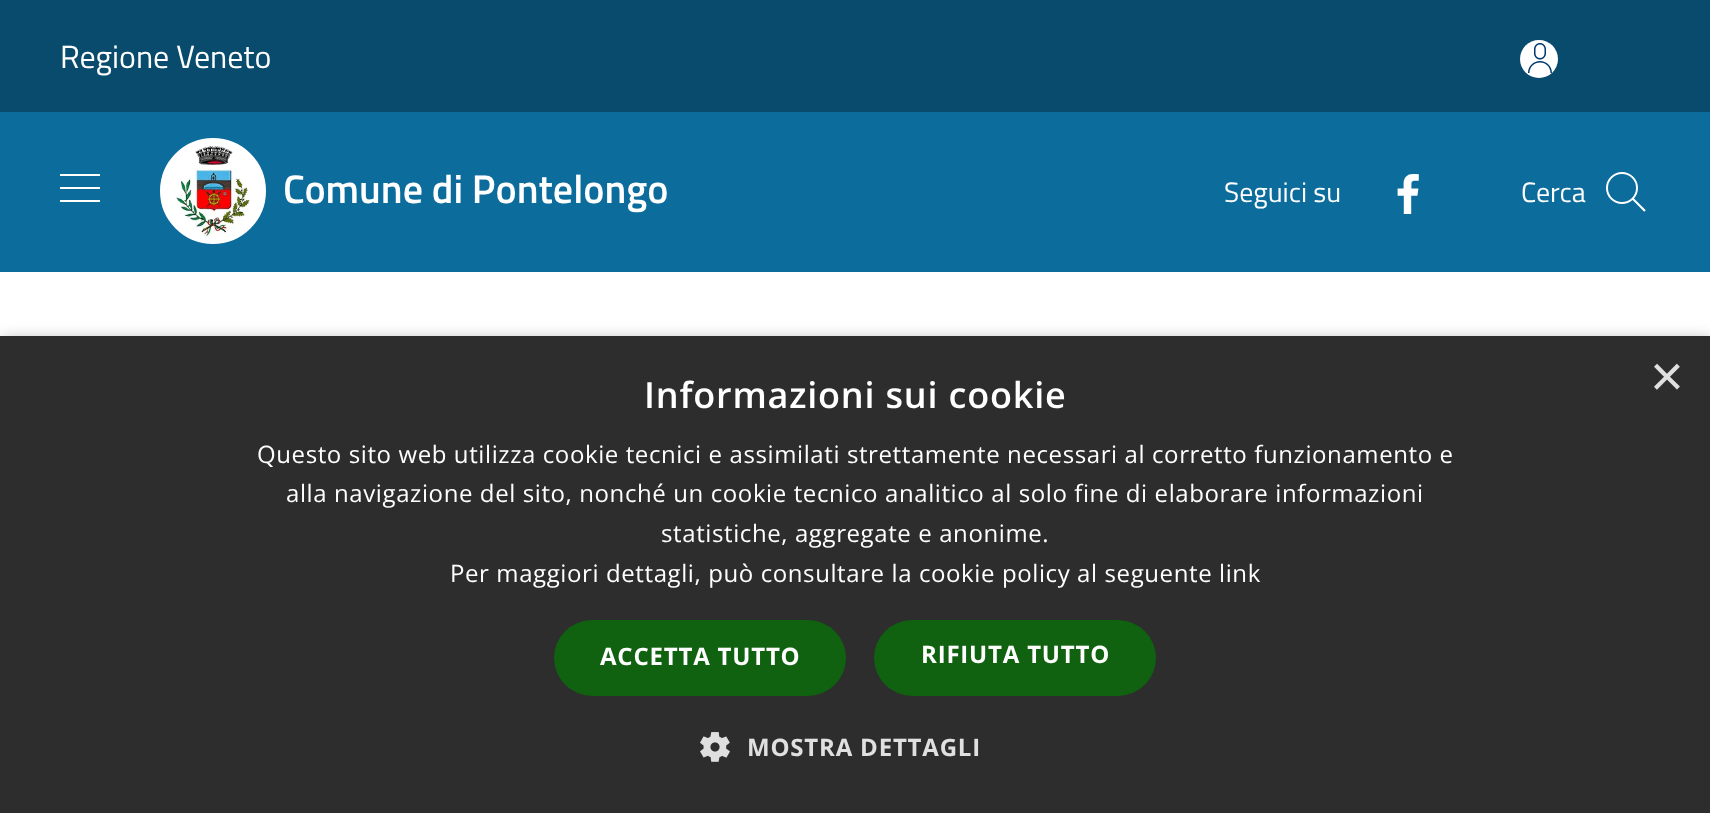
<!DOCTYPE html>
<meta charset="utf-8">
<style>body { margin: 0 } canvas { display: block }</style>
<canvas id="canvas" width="1710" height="813"></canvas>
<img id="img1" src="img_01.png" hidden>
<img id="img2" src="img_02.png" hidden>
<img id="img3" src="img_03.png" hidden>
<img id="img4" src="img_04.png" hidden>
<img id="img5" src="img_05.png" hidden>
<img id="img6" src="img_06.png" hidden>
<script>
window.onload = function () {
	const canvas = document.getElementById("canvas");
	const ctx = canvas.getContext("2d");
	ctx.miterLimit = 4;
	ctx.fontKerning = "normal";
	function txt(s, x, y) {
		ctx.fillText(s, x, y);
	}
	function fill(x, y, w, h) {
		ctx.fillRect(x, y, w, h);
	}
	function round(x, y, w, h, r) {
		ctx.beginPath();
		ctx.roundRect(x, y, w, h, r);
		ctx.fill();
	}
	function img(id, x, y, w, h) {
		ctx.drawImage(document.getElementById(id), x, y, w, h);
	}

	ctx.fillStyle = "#FFFFFF";
	fill(0, 0, 1710, 813);
	ctx.fillStyle = "#084B6D";
	fill(0, 0, 1710, 112);
	ctx.fillStyle = "#FFFFFF";
	ctx.beginPath();
	ctx.arc(1539, 59, 19, 0, Math.PI * 2);
	ctx.fill();
	img("img1", 1528, 43, 24, 30);
	ctx.fillStyle = "#0C6C9C";
	fill(0, 112, 1710, 160);
	img("img2", 60, 174, 40, 28);
	ctx.fillStyle = "#FFFFFF";
	ctx.beginPath();
	ctx.arc(213, 191, 52, 0, Math.PI * 2);
	ctx.fill();
	ctx.strokeStyle = "#FFFFFF";
	ctx.lineWidth = 2;
	ctx.stroke();
	img("img3", 176, 146, 76, 92);
	img("img4", 1397, 174, 22, 40);
	img("img5", 1606, 172, 40, 40);
	ctx.fillStyle = "rgba(0, 0, 0, 0.35)";
	ctx.filter = "blur(8px)";
	ctx.beginPath();
	ctx.rect(2, 340, 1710, 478);
	ctx.fill();
	ctx.filter = "none";
	ctx.fillStyle = "#2D2D2D";
	fill(0, 336, 1710, 477);
	ctx.fillStyle = "#106110";
	round(554, 620, 292, 76, 38);
	round(874, 620, 282, 76, 38);
	img("img6", 700, 732, 30, 30);
	ctx.font = "32px Titillium Web";
	ctx.fillStyle = "#FFFFFF";
	txt("Regione Veneto", 60, 68);
	ctx.font = "600 40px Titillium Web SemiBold";
	txt("Comune di Pontelongo", 283, 203);
	ctx.font = "28px Titillium Web";
	txt("Seguici su", 1224, 202);
	txt("Cerca", 1521, 202);
	ctx.font = "58px Liberation Sans";
	ctx.fillStyle = "#E0E0E0";
	txt("×", 1650, 396);
	ctx.letterSpacing = "0.8px";
	ctx.font = "600 36px Open Sans";
	ctx.fillStyle = "#FFFFFF";
	txt("Informazioni sui cookie", 644, 408);
	ctx.letterSpacing = "0.6px";
	ctx.font = "24px Open Sans";
	txt("Questo sito web utilizza cookie tecnici e assimilati strettamente necessari al corretto funzionamento e", 257, 463);
	txt("alla navigazione del sito, nonché un cookie tecnico analitico al solo fine di elaborare informazioni", 286, 502);
	txt("statistiche, aggregate e anonime.", 661, 542);
	txt("Per maggiori dettagli, può consultare la cookie policy al seguente link", 450, 582);
	ctx.letterSpacing = "0.8px";
	ctx.font = "bold 24px Open Sans";
	txt("ACCETTA TUTTO", 600, 665);
	txt("RIFIUTA TUTTO", 921, 663);
	ctx.fillStyle = "#E0E0E0";
	txt("MOSTRA DETTAGLI", 747, 756);
};
</script>
